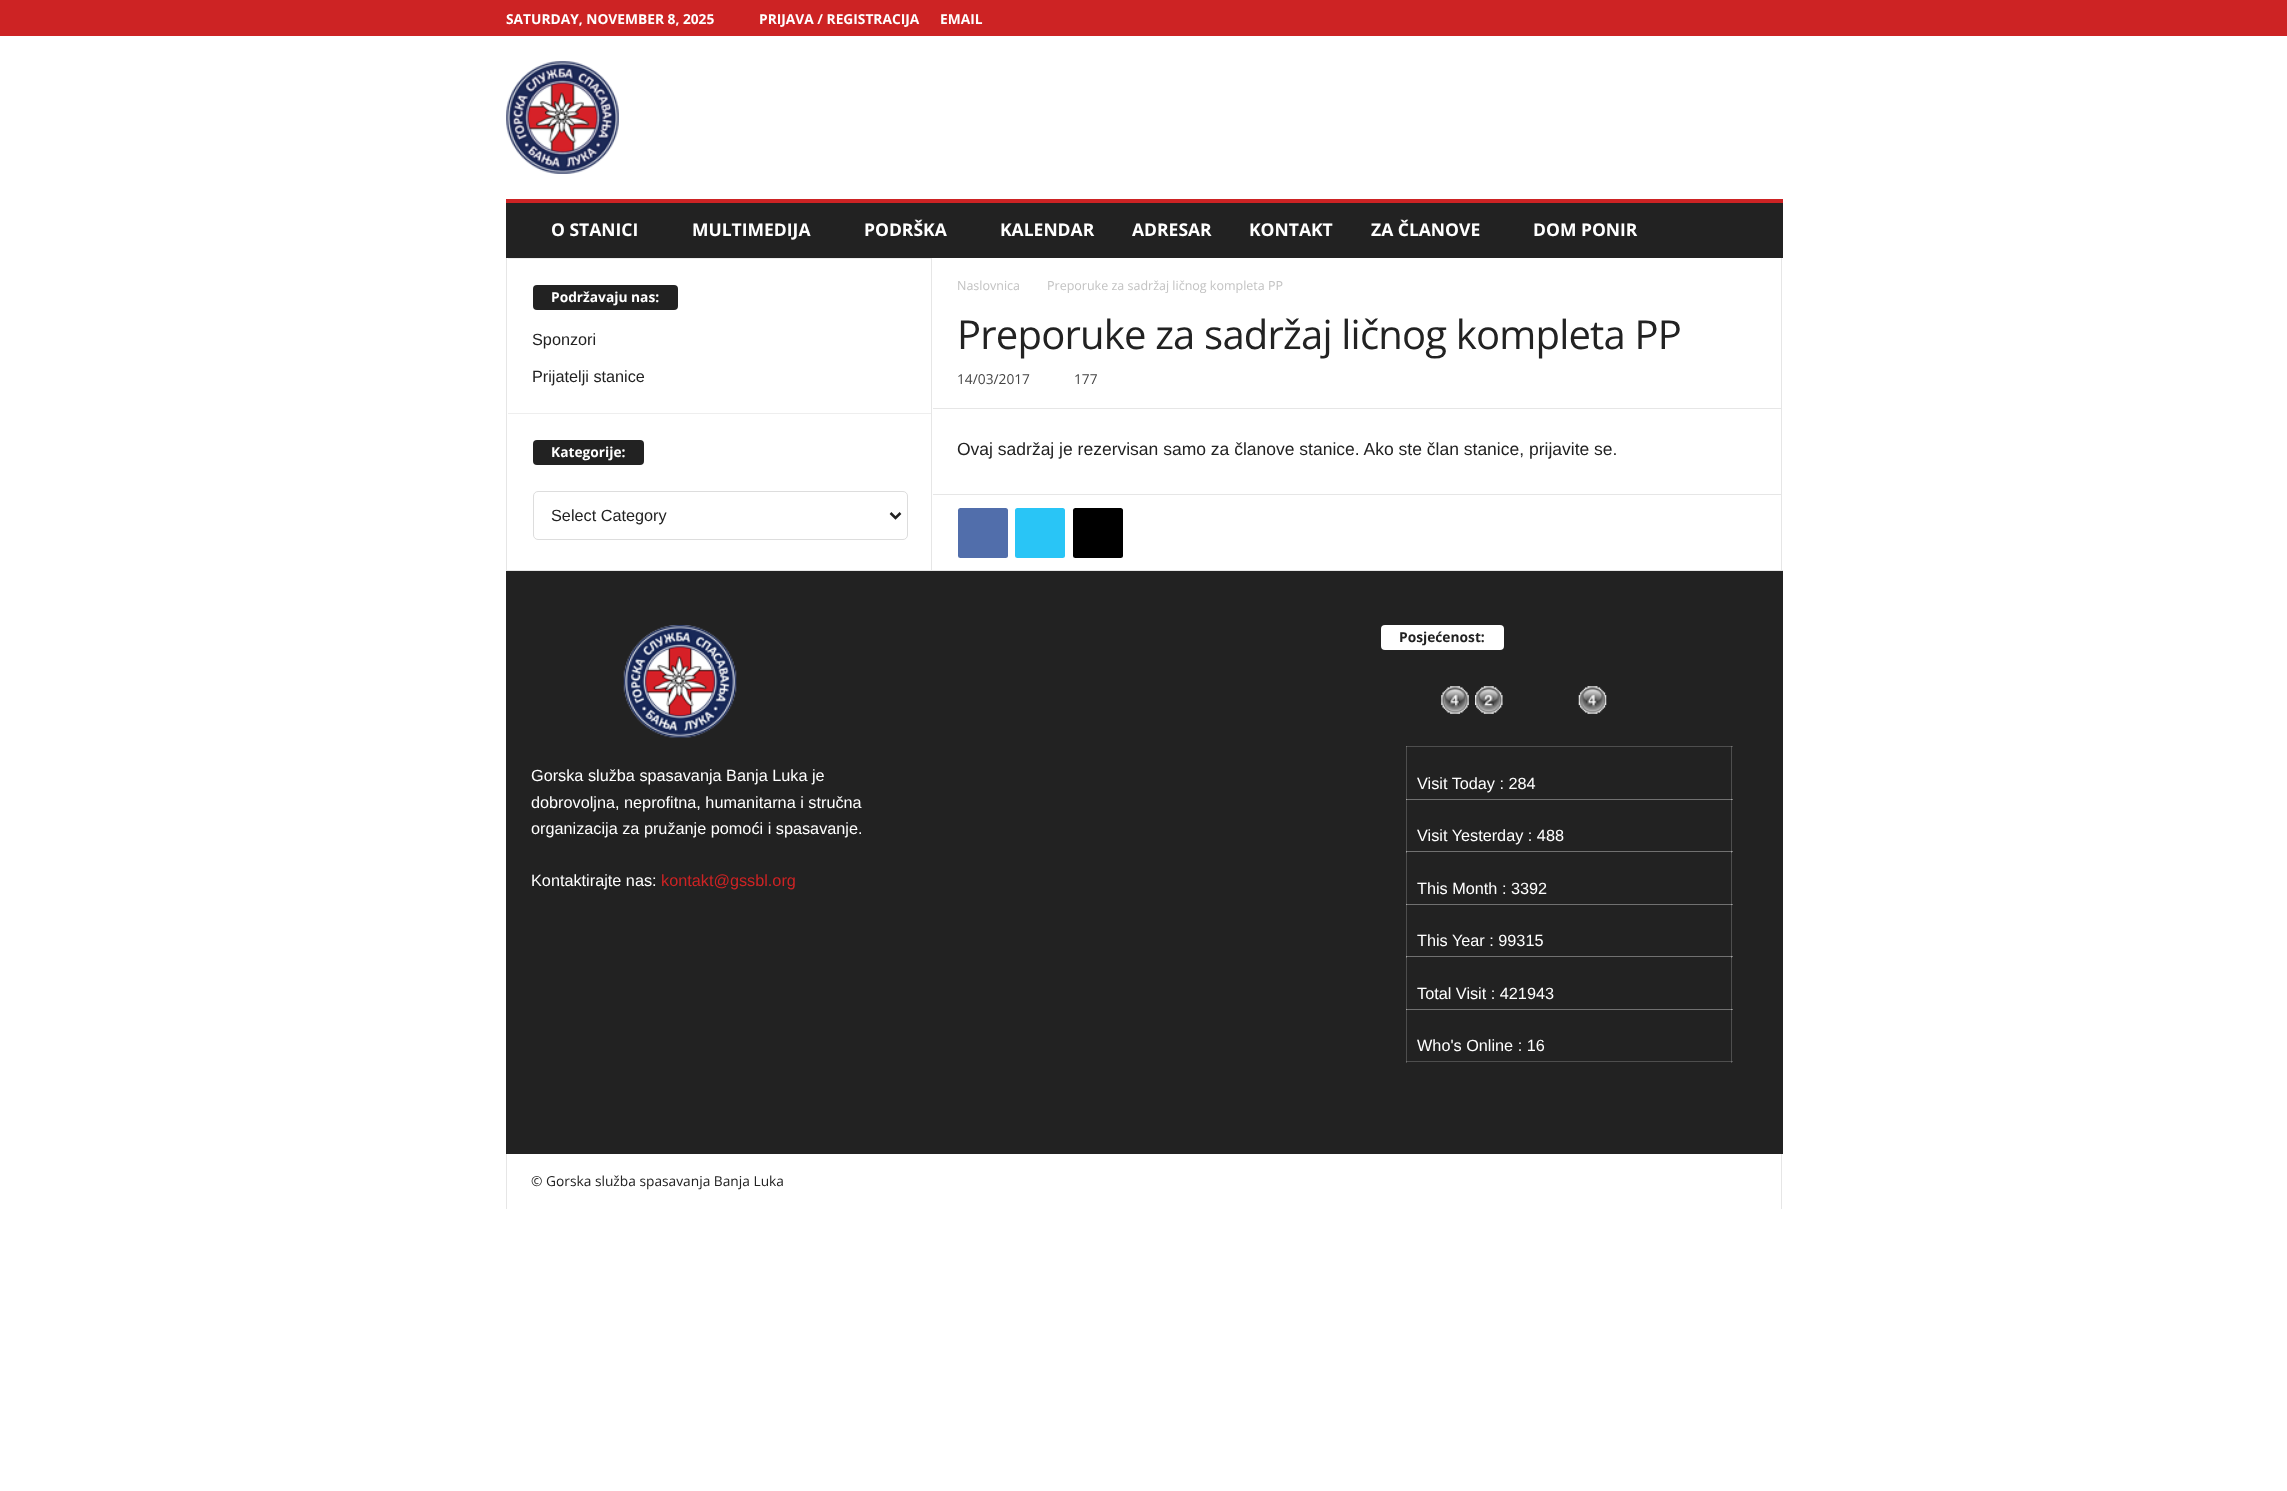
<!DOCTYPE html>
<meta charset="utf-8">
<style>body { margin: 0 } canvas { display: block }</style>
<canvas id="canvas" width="2287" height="1491"></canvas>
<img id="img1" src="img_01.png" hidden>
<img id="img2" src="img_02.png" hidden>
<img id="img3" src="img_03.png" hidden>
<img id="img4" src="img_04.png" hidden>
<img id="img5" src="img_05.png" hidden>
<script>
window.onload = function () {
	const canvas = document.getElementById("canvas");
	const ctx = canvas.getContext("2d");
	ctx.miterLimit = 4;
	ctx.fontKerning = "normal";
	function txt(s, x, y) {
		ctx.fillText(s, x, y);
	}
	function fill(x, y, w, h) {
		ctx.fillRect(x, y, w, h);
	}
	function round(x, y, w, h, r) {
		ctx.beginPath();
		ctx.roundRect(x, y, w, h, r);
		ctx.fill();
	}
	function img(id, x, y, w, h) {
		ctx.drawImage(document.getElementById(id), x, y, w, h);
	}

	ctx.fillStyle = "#FFFFFF";
	fill(0, 0, 2287, 1491);
	ctx.fillStyle = "#CD2324";
	fill(0, 0, 2287, 36);
	img("img1", 506, 61, 113, 113);
	ctx.fillStyle = "#222222";
	fill(506, 203, 1277, 55);
	ctx.fillStyle = "#CD2324";
	fill(506, 199, 1277, 4);
	ctx.fillStyle = "#E6E6E6";
	fill(506, 570, 1277, 1);
	fill(506, 258, 1, 312);
	ctx.fillStyle = "#EEEEEE";
	fill(508, 258, 423, 1);
	ctx.fillStyle = "#222222";
	round(533, 285, 145, 25, 4);
	ctx.fillStyle = "#EEEEEE";
	fill(508, 413, 423, 1);
	ctx.fillStyle = "#222222";
	round(533, 440, 111, 25, 4);
	ctx.beginPath();
	ctx.roundRect(533.5, 491.5, 374, 48, 4.5);
	ctx.strokeStyle = "#DDDDDD";
	ctx.stroke();
	ctx.beginPath();
	ctx.moveTo(890.5, 513);
	ctx.lineTo(895.5, 518);
	ctx.lineTo(900.5, 513);
	ctx.strokeStyle = "#222222";
	ctx.lineWidth = 2.5;
	ctx.stroke();
	ctx.fillStyle = "#E6E6E6";
	fill(931, 258, 1, 312);
	fill(933, 408, 848, 1);
	fill(933, 494, 848, 1);
	ctx.fillStyle = "#516EAB";
	round(958, 508, 50, 50, 2.5);
	ctx.fillStyle = "#29C5F6";
	round(1015, 508, 50, 50, 2.5);
	ctx.fillStyle = "#000000";
	round(1073, 508, 50, 50, 2.5);
	ctx.fillStyle = "#E6E6E6";
	fill(1781, 258, 1, 312);
	ctx.fillStyle = "#222222";
	fill(506, 571, 1277, 583);
	ctx.fillStyle = "#4E4E4E";
	fill(1406, 746, 1, 317);
	fill(1731, 746, 1, 264);
	ctx.fillStyle = "#717171";
	fill(1406, 851, 1, 2);
	fill(1731, 851, 1, 2);
	fill(1406, 956, 1, 2);
	fill(1731, 956, 1, 2);
	ctx.fillStyle = "#4E4E4E";
	fill(1406, 1061, 327, 1);
	ctx.fillStyle = "#717171";
	fill(1406, 1061, 1, 1);
	ctx.fillStyle = "#4E4E4E";
	fill(1731, 1009, 1, 54);
	ctx.fillStyle = "#717171";
	fill(1731, 1061, 1, 1);
	img("img2", 623, 625, 114, 113);
	ctx.fillStyle = "#FFFFFF";
	round(1381, 625, 123, 25, 4);
	img("img3", 1441, 686, 28, 28);
	img("img4", 1475, 686, 28, 28);
	img("img5", 1578, 686, 29, 28);
	ctx.fillStyle = "#4E4E4E";
	fill(1406, 746, 327, 1);
	ctx.fillStyle = "#717171";
	fill(1406, 746, 1, 1);
	fill(1731, 746, 1, 1);
	fill(1406, 799, 327, 1);
	ctx.fillStyle = "#A4A4A4";
	fill(1406, 799, 1, 1);
	fill(1731, 799, 1, 1);
	ctx.fillStyle = "#717171";
	fill(1406, 851, 327, 1);
	ctx.fillStyle = "#A4A4A4";
	fill(1406, 851, 1, 1);
	fill(1731, 851, 1, 1);
	ctx.fillStyle = "#717171";
	fill(1406, 904, 327, 1);
	ctx.fillStyle = "#A4A4A4";
	fill(1406, 904, 1, 1);
	fill(1731, 904, 1, 1);
	ctx.fillStyle = "#717171";
	fill(1406, 956, 327, 1);
	ctx.fillStyle = "#A4A4A4";
	fill(1406, 956, 1, 1);
	fill(1731, 956, 1, 1);
	ctx.fillStyle = "#717171";
	fill(1406, 1009, 327, 1);
	ctx.fillStyle = "#A4A4A4";
	fill(1406, 1009, 1, 1);
	fill(1731, 1009, 1, 1);
	ctx.fillStyle = "#E6E6E6";
	fill(506, 1154, 1, 55);
	fill(1781, 1154, 1, 55);
	ctx.font = "bold 13.75px Open Sans";
	ctx.fillStyle = "#FFFFFF";
	txt("SATURDAY, NOVEMBER 8, 2025", 506, 24);
	txt("PRIJAVA / REGISTRACIJA", 759, 24);
	txt("EMAIL", 940, 24);
	ctx.font = "bold 17.5px Open Sans";
	txt("O STANICI", 551, 236);
	txt("MULTIMEDIJA", 692, 236);
	txt("PODRŠKA", 864, 236);
	txt("KALENDAR", 1000, 236);
	txt("ADRESAR", 1132, 236);
	txt("KONTAKT", 1249, 236);
	txt("ZA ČLANOVE", 1371, 236);
	txt("DOM PONIR", 1533, 236);
	ctx.font = "bold 13.75px Open Sans";
	txt("Podržavaju nas:", 551, 302);
	ctx.font = "16.25px Liberation Sans";
	ctx.fillStyle = "#222222";
	txt("Sponzori", 532, 345);
	txt("Prijatelji stanice", 532, 382);
	ctx.font = "bold 13.75px Open Sans";
	ctx.fillStyle = "#FFFFFF";
	txt("Kategorije:", 551, 457);
	ctx.font = "16.25px Liberation Sans";
	ctx.fillStyle = "#222222";
	txt("Select Category", 551, 521);
	ctx.font = "12.5px Open Sans";
	ctx.fillStyle = "#C3C3C3";
	txt("Naslovnica", 957, 290);
	txt("Preporuke za sadržaj ličnog kompleta PP", 1047, 290);
	ctx.letterSpacing = "-0.8px";
	ctx.font = "40px Open Sans";
	ctx.fillStyle = "#222222";
	txt("Preporuke za sadržaj ličnog kompleta PP", 957, 349);
	ctx.letterSpacing = "0px";
	ctx.font = "13.75px Open Sans";
	ctx.fillStyle = "#444444";
	txt("14/03/2017", 957, 384);
	txt("177", 1074, 384);
	ctx.font = "17.5px Liberation Sans";
	ctx.fillStyle = "#222222";
	txt("Ovaj sadržaj je rezervisan samo za članove stanice. Ako ste član stanice, prijavite se.", 957, 455);
	ctx.font = "16.25px Liberation Sans";
	ctx.fillStyle = "#FFFFFF";
	txt("Gorska služba spasavanja Banja Luka je", 531, 781);
	txt("dobrovoljna, neprofitna, humanitarna i stručna", 531, 808);
	txt("organizacija za pružanje pomoći i spasavanje.", 531, 834);
	txt("Kontaktirajte nas:", 531, 886);
	ctx.fillStyle = "#CD2324";
	txt("kontakt@gssbl.org", 661, 886);
	ctx.font = "bold 13.75px Open Sans";
	ctx.fillStyle = "#222222";
	txt("Posjećenost:", 1399, 642);
	ctx.font = "16.25px Liberation Sans";
	ctx.fillStyle = "#FFFFFF";
	txt("Visit Today : 284", 1417, 789);
	txt("Visit Yesterday : 488", 1417, 841);
	txt("This Month : 3392", 1417, 894);
	txt("This Year : 99315", 1417, 946);
	txt("Total Visit : 421943", 1417, 999);
	txt("Who's Online : 16", 1417, 1051);
	ctx.font = "13.75px Open Sans";
	ctx.fillStyle = "#222222";
	txt("© Gorska služba spasavanja Banja Luka", 531, 1186);
};
</script>
